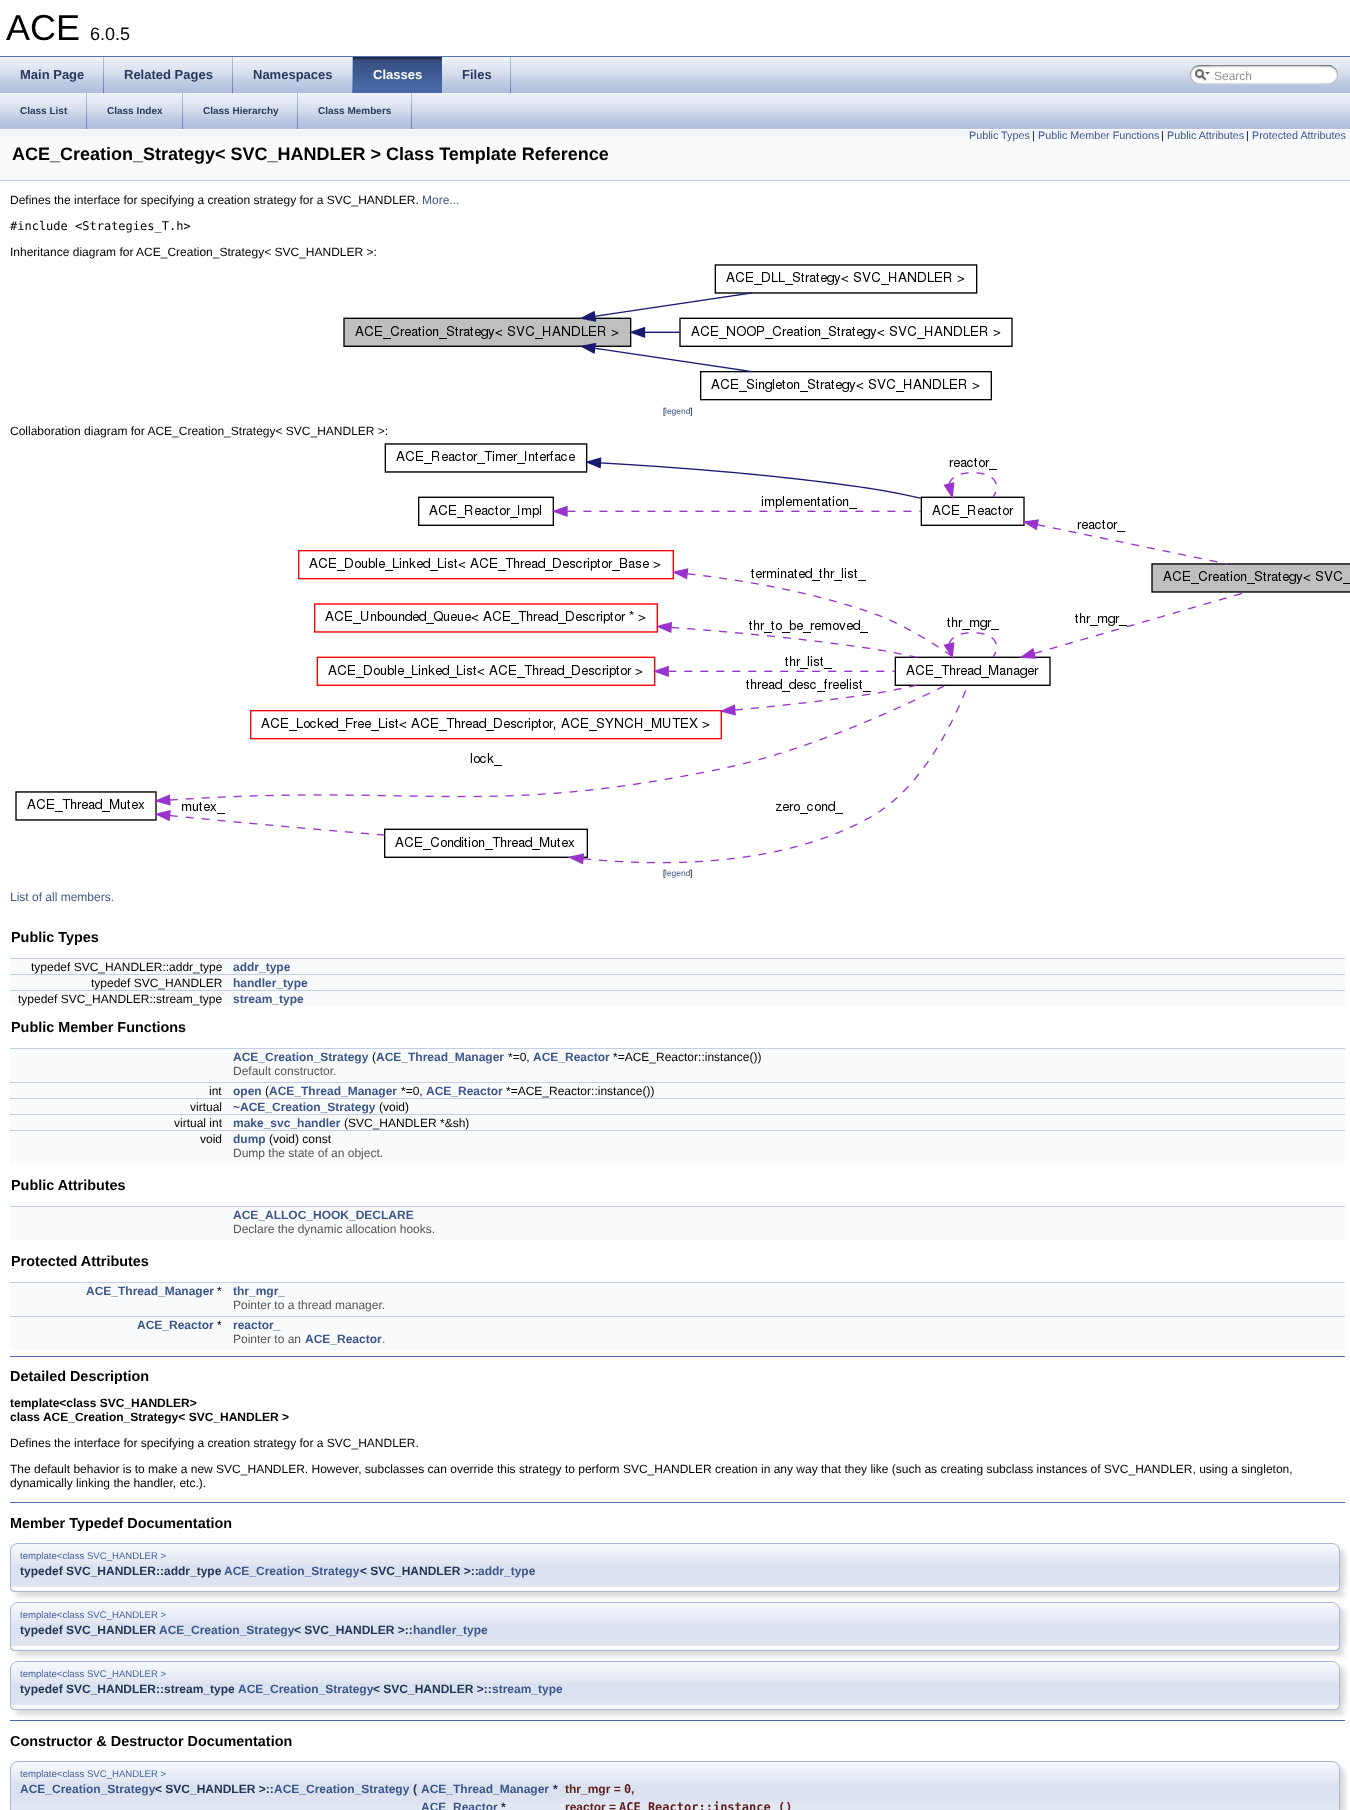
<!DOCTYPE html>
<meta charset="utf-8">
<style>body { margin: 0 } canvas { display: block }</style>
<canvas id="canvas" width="1350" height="1810"></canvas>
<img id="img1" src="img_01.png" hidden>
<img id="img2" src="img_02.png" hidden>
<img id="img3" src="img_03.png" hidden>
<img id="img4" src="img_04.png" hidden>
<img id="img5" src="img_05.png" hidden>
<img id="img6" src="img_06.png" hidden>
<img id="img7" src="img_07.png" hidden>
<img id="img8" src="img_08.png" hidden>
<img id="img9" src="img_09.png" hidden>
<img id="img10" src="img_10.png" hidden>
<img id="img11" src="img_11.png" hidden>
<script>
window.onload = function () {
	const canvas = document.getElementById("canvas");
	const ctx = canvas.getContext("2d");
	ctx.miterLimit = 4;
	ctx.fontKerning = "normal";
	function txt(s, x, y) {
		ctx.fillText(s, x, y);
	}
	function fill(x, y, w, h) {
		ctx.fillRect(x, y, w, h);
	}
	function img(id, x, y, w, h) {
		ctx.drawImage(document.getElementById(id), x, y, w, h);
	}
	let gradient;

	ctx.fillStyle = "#FFFFFF";
	fill(0, 0, 1350, 1810);
	ctx.fillStyle = "#5373B4";
	fill(0, 56, 1350, 1);
	img("img1", 0, 57, 1350, 36);
	img("img2", 103, 57, 1, 36);
	img("img2", 232, 57, 1, 36);
	img("img2", 352, 57, 1, 36);
	img("img3", 353, 57, 89, 36);
	img("img2", 510, 57, 1, 36);
	img("img4", 1190, 65, 20, 19);
	img("img5", 1195, 69, 15, 12);
	img("img6", 1210, 65, 122, 19);
	img("img7", 1320, 65, 18, 19);
	img("img1", 0, 93, 1350, 36);
	img("img2", 86, 93, 1, 36);
	img("img2", 182, 93, 1, 36);
	img("img2", 297, 93, 1, 36);
	img("img2", 411, 93, 1, 36);
	ctx.fillStyle = "#F9FAFC";
	fill(0, 137, 1350, 43);
	img("img8", 0, 129, 1350, 8);
	ctx.fillStyle = "#C4CFE5";
	fill(0, 180, 1350, 1);
	img("img9", 343, 264, 670, 137);
	img("img10", 15, 443, 1335, 422);
	ctx.fillStyle = "#F9FAFC";
	fill(10, 959, 1335, 15);
	ctx.fillStyle = "#C4CFE5";
	fill(10, 958, 1335, 1);
	ctx.fillStyle = "#F9FAFC";
	fill(10, 975, 1335, 15);
	ctx.fillStyle = "#C4CFE5";
	fill(10, 974, 1335, 1);
	ctx.fillStyle = "#F9FAFC";
	fill(10, 991, 1335, 15);
	ctx.fillStyle = "#C4CFE5";
	fill(10, 990, 1335, 1);
	ctx.fillStyle = "#F9FAFC";
	fill(10, 1049, 1335, 15);
	ctx.fillStyle = "#C4CFE5";
	fill(10, 1048, 1335, 1);
	ctx.fillStyle = "#F9FAFC";
	fill(10, 1064, 1335, 18);
	fill(10, 1083, 1335, 15);
	ctx.fillStyle = "#C4CFE5";
	fill(10, 1082, 1335, 1);
	ctx.fillStyle = "#F9FAFC";
	fill(10, 1099, 1335, 15);
	ctx.fillStyle = "#C4CFE5";
	fill(10, 1098, 1335, 1);
	ctx.fillStyle = "#F9FAFC";
	fill(10, 1115, 1335, 15);
	ctx.fillStyle = "#C4CFE5";
	fill(10, 1114, 1335, 1);
	ctx.fillStyle = "#F9FAFC";
	fill(10, 1131, 1335, 15);
	ctx.fillStyle = "#C4CFE5";
	fill(10, 1130, 1335, 1);
	ctx.fillStyle = "#F9FAFC";
	fill(10, 1146, 1335, 18);
	fill(10, 1207, 1335, 15);
	ctx.fillStyle = "#C4CFE5";
	fill(10, 1206, 1335, 1);
	ctx.fillStyle = "#F9FAFC";
	fill(10, 1222, 1335, 18);
	fill(10, 1283, 1335, 15);
	ctx.fillStyle = "#C4CFE5";
	fill(10, 1282, 1335, 1);
	ctx.fillStyle = "#F9FAFC";
	fill(10, 1298, 1335, 18);
	fill(10, 1317, 1335, 15);
	ctx.fillStyle = "#C4CFE5";
	fill(10, 1316, 1335, 1);
	ctx.fillStyle = "#F9FAFC";
	fill(10, 1332, 1335, 18);
	ctx.fillStyle = "#4A6AAA";
	fill(10, 1356, 1335, 1);
	fill(10, 1502, 1335, 1);
	ctx.fillStyle = "rgba(0, 0, 0, 0.15)";
	ctx.filter = "blur(2.5px)";
	ctx.beginPath();
	ctx.roundRect(15, 1548, 1330, 44, 8);
	ctx.fill();
	ctx.filter = "none";
	ctx.fillStyle = "#E2E8F2";
	ctx.beginPath();
	ctx.roundRect(10, 1543, 1330, 44, [8, 8, 0, 0]);
	ctx.fill();
	img("img11", 10, 1544, 1330, 41);
	ctx.fillStyle = "#A8B8D9";
	ctx.beginPath();
	ctx.moveTo(18, 1543);
	ctx.lineTo(1332, 1543);
	ctx.bezierCurveTo(1336, 1543, 1340, 1547, 1340, 1551);
	ctx.lineTo(1340, 1587);
	ctx.lineTo(10, 1587);
	ctx.lineTo(10, 1551);
	ctx.bezierCurveTo(10, 1547, 14, 1543, 18, 1543);
	ctx.closePath();
	ctx.moveTo(18, 1544);
	ctx.lineTo(1332, 1544);
	ctx.bezierCurveTo(1336, 1544, 1339, 1547, 1339, 1551);
	ctx.lineTo(1339, 1587);
	ctx.lineTo(11, 1587);
	ctx.lineTo(11, 1551);
	ctx.bezierCurveTo(11, 1547, 14, 1544, 18, 1544);
	ctx.closePath();
	ctx.fill("evenodd");
	ctx.fillStyle = "rgba(0, 0, 0, 0.15)";
	ctx.filter = "blur(2.5px)";
	ctx.beginPath();
	ctx.roundRect(15, 1592, 1330, 5, 5);
	ctx.fill();
	ctx.filter = "none";
	ctx.save();
	ctx.beginPath();
	ctx.roundRect(10, 1587, 1330, 5, [0, 0, 5, 5]);
	ctx.clip();
	gradient = ctx.createLinearGradient(675, 1587, 675, 1591);
	gradient.addColorStop(0, "#FFFFFF");
	gradient.addColorStop(0.95, "#F7F8FB");
	gradient.addColorStop(1, "#EEF1F7");
	ctx.fillStyle = gradient;
	fill(10, 1587, 1330, 4);
	ctx.restore();
	ctx.fillStyle = "#A8B8D9";
	ctx.beginPath();
	ctx.moveTo(10, 1587);
	ctx.lineTo(1340, 1587);
	ctx.bezierCurveTo(1340, 1590, 1338, 1592, 1335, 1592);
	ctx.lineTo(15, 1592);
	ctx.bezierCurveTo(12, 1592, 10, 1590, 10, 1587);
	ctx.closePath();
	ctx.moveTo(11, 1587);
	ctx.lineTo(1339, 1587);
	ctx.bezierCurveTo(1339, 1589, 1337, 1591, 1335, 1591);
	ctx.lineTo(15, 1591);
	ctx.bezierCurveTo(13, 1591, 11, 1589, 11, 1587);
	ctx.closePath();
	ctx.fill("evenodd");
	ctx.fillStyle = "rgba(0, 0, 0, 0.15)";
	ctx.filter = "blur(2.5px)";
	ctx.beginPath();
	ctx.roundRect(15, 1607, 1330, 44, 8);
	ctx.fill();
	ctx.filter = "none";
	ctx.fillStyle = "#E2E8F2";
	ctx.beginPath();
	ctx.roundRect(10, 1602, 1330, 44, [8, 8, 0, 0]);
	ctx.fill();
	img("img11", 10, 1603, 1330, 41);
	ctx.fillStyle = "#A8B8D9";
	ctx.beginPath();
	ctx.moveTo(18, 1602);
	ctx.lineTo(1332, 1602);
	ctx.bezierCurveTo(1336, 1602, 1340, 1606, 1340, 1610);
	ctx.lineTo(1340, 1646);
	ctx.lineTo(10, 1646);
	ctx.lineTo(10, 1610);
	ctx.bezierCurveTo(10, 1606, 14, 1602, 18, 1602);
	ctx.closePath();
	ctx.moveTo(18, 1603);
	ctx.lineTo(1332, 1603);
	ctx.bezierCurveTo(1336, 1603, 1339, 1606, 1339, 1610);
	ctx.lineTo(1339, 1646);
	ctx.lineTo(11, 1646);
	ctx.lineTo(11, 1610);
	ctx.bezierCurveTo(11, 1606, 14, 1603, 18, 1603);
	ctx.closePath();
	ctx.fill("evenodd");
	ctx.fillStyle = "rgba(0, 0, 0, 0.15)";
	ctx.filter = "blur(2.5px)";
	ctx.beginPath();
	ctx.roundRect(15, 1651, 1330, 5, 5);
	ctx.fill();
	ctx.filter = "none";
	ctx.save();
	ctx.beginPath();
	ctx.roundRect(10, 1646, 1330, 5, [0, 0, 5, 5]);
	ctx.clip();
	gradient = ctx.createLinearGradient(675, 1646, 675, 1650);
	gradient.addColorStop(0, "#FFFFFF");
	gradient.addColorStop(0.95, "#F7F8FB");
	gradient.addColorStop(1, "#EEF1F7");
	ctx.fillStyle = gradient;
	fill(10, 1646, 1330, 4);
	ctx.restore();
	ctx.fillStyle = "#A8B8D9";
	ctx.beginPath();
	ctx.moveTo(10, 1646);
	ctx.lineTo(1340, 1646);
	ctx.bezierCurveTo(1340, 1649, 1338, 1651, 1335, 1651);
	ctx.lineTo(15, 1651);
	ctx.bezierCurveTo(12, 1651, 10, 1649, 10, 1646);
	ctx.closePath();
	ctx.moveTo(11, 1646);
	ctx.lineTo(1339, 1646);
	ctx.bezierCurveTo(1339, 1648, 1337, 1650, 1335, 1650);
	ctx.lineTo(15, 1650);
	ctx.bezierCurveTo(13, 1650, 11, 1648, 11, 1646);
	ctx.closePath();
	ctx.fill("evenodd");
	ctx.fillStyle = "rgba(0, 0, 0, 0.15)";
	ctx.filter = "blur(2.5px)";
	ctx.beginPath();
	ctx.roundRect(15, 1666, 1330, 44, 8);
	ctx.fill();
	ctx.filter = "none";
	ctx.fillStyle = "#E2E8F2";
	ctx.beginPath();
	ctx.roundRect(10, 1661, 1330, 44, [8, 8, 0, 0]);
	ctx.fill();
	img("img11", 10, 1662, 1330, 41);
	ctx.fillStyle = "#A8B8D9";
	ctx.beginPath();
	ctx.moveTo(18, 1661);
	ctx.lineTo(1332, 1661);
	ctx.bezierCurveTo(1336, 1661, 1340, 1665, 1340, 1669);
	ctx.lineTo(1340, 1705);
	ctx.lineTo(10, 1705);
	ctx.lineTo(10, 1669);
	ctx.bezierCurveTo(10, 1665, 14, 1661, 18, 1661);
	ctx.closePath();
	ctx.moveTo(18, 1662);
	ctx.lineTo(1332, 1662);
	ctx.bezierCurveTo(1336, 1662, 1339, 1665, 1339, 1669);
	ctx.lineTo(1339, 1705);
	ctx.lineTo(11, 1705);
	ctx.lineTo(11, 1669);
	ctx.bezierCurveTo(11, 1665, 14, 1662, 18, 1662);
	ctx.closePath();
	ctx.fill("evenodd");
	ctx.fillStyle = "rgba(0, 0, 0, 0.15)";
	ctx.filter = "blur(2.5px)";
	ctx.beginPath();
	ctx.roundRect(15, 1710, 1330, 5, 5);
	ctx.fill();
	ctx.filter = "none";
	ctx.save();
	ctx.beginPath();
	ctx.roundRect(10, 1705, 1330, 5, [0, 0, 5, 5]);
	ctx.clip();
	gradient = ctx.createLinearGradient(675, 1705, 675, 1709);
	gradient.addColorStop(0, "#FFFFFF");
	gradient.addColorStop(0.95, "#F7F8FB");
	gradient.addColorStop(1, "#EEF1F7");
	ctx.fillStyle = gradient;
	fill(10, 1705, 1330, 4);
	ctx.restore();
	ctx.fillStyle = "#A8B8D9";
	ctx.beginPath();
	ctx.moveTo(10, 1705);
	ctx.lineTo(1340, 1705);
	ctx.bezierCurveTo(1340, 1708, 1338, 1710, 1335, 1710);
	ctx.lineTo(15, 1710);
	ctx.bezierCurveTo(12, 1710, 10, 1708, 10, 1705);
	ctx.closePath();
	ctx.moveTo(11, 1705);
	ctx.lineTo(1339, 1705);
	ctx.bezierCurveTo(1339, 1707, 1337, 1709, 1335, 1709);
	ctx.lineTo(15, 1709);
	ctx.bezierCurveTo(13, 1709, 11, 1707, 11, 1705);
	ctx.closePath();
	ctx.fill("evenodd");
	ctx.fillStyle = "#4A6AAA";
	fill(10, 1720, 1335, 1);
	ctx.fillStyle = "rgba(0, 0, 0, 0.15)";
	ctx.filter = "blur(2.5px)";
	ctx.beginPath();
	ctx.roundRect(15, 1766, 1330, 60, 8);
	ctx.fill();
	ctx.filter = "none";
	ctx.fillStyle = "#E2E8F2";
	ctx.beginPath();
	ctx.moveTo(18, 1761);
	ctx.lineTo(1332, 1761);
	ctx.bezierCurveTo(1336.5, 1761, 1340, 1764.5, 1340, 1769);
	ctx.lineTo(1340, 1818);
	ctx.lineTo(10, 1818);
	ctx.lineTo(10, 1769);
	ctx.bezierCurveTo(10, 1764.5, 13.5, 1761, 18, 1761);
	ctx.closePath();
	ctx.fill();
	img("img11", 10, 1762, 1330, 41);
	ctx.fillStyle = "#A8B8D9";
	ctx.beginPath();
	ctx.moveTo(18, 1761);
	ctx.lineTo(1332, 1761);
	ctx.bezierCurveTo(1336, 1761, 1340, 1765, 1340, 1769);
	ctx.lineTo(1340, 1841);
	ctx.lineTo(10, 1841);
	ctx.lineTo(10, 1769);
	ctx.bezierCurveTo(10, 1765, 14, 1761, 18, 1761);
	ctx.closePath();
	ctx.moveTo(18, 1762);
	ctx.lineTo(1332, 1762);
	ctx.bezierCurveTo(1336, 1762, 1339, 1765, 1339, 1769);
	ctx.lineTo(1339, 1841);
	ctx.lineTo(11, 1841);
	ctx.lineTo(11, 1769);
	ctx.bezierCurveTo(11, 1765, 14, 1762, 18, 1762);
	ctx.closePath();
	ctx.fill("evenodd");
	ctx.font = "36px Liberation Sans";
	ctx.fillStyle = "#000000";
	txt("ACE", 6, 40);
	ctx.font = "18px Liberation Sans";
	txt("6.0.5", 90, 40);
	ctx.font = "bold 13px Liberation Sans";
	ctx.fillStyle = "#283A5D";
	txt("Main Page", 20, 79);
	txt("Related Pages", 124, 79);
	txt("Namespaces", 253, 79);
	ctx.fillStyle = "#FFFFFF";
	txt("Classes", 373, 79);
	ctx.fillStyle = "#283A5D";
	txt("Files", 462, 79);
	ctx.font = "12px Liberation Sans";
	ctx.fillStyle = "#909090";
	txt("Search", 1214, 80);
	ctx.font = "bold 10px Liberation Sans";
	ctx.fillStyle = "#283A5D";
	txt("Class List", 20, 114);
	txt("Class Index", 107, 114);
	txt("Class Hierarchy", 203, 114);
	txt("Class Members", 318, 114);
	ctx.font = "10.75px Liberation Sans";
	ctx.fillStyle = "#3D578C";
	txt("Public Types", 969, 139);
	ctx.fillStyle = "#000000";
	txt("|", 1032, 139);
	ctx.fillStyle = "#3D578C";
	txt("Public Member Functions", 1038, 139);
	ctx.fillStyle = "#000000";
	txt("|", 1161, 139);
	ctx.fillStyle = "#3D578C";
	txt("Public Attributes", 1167, 139);
	ctx.fillStyle = "#000000";
	txt("|", 1246, 139);
	ctx.fillStyle = "#3D578C";
	txt("Protected Attributes", 1252, 139);
	ctx.font = "bold 18px Liberation Sans";
	ctx.fillStyle = "#000000";
	txt("ACE_Creation_Strategy< SVC_HANDLER > Class Template Reference", 12, 160);
	ctx.font = "12px Liberation Sans";
	txt("Defines the interface for specifying a creation strategy for a SVC_HANDLER.", 10, 204);
	ctx.fillStyle = "#3D578C";
	txt("More...", 422, 204);
	ctx.font = "12px DejaVu Sans Mono";
	ctx.fillStyle = "#000000";
	txt("#include <Strategies_T.h>", 10, 230);
	ctx.font = "12px Liberation Sans";
	txt("Inheritance diagram for ACE_Creation_Strategy< SVC_HANDLER >:", 10, 256);
	ctx.font = "8.5px Liberation Sans";
	txt("[", 663, 414);
	ctx.fillStyle = "#3D578C";
	txt("legend", 665, 414);
	ctx.fillStyle = "#000000";
	txt("]", 690, 414);
	ctx.font = "12px Liberation Sans";
	txt("Collaboration diagram for ACE_Creation_Strategy< SVC_HANDLER >:", 10, 435);
	ctx.font = "8.5px Liberation Sans";
	txt("[", 663, 876);
	ctx.fillStyle = "#3D578C";
	txt("legend", 665, 876);
	ctx.fillStyle = "#000000";
	txt("]", 690, 876);
	ctx.font = "12px Liberation Sans";
	ctx.fillStyle = "#3D578C";
	txt("List of all members.", 10, 901);
	ctx.font = "bold 14.4px Liberation Sans";
	ctx.fillStyle = "#000000";
	txt("Public Types", 11, 942);
	ctx.font = "12px Liberation Sans";
	txt("typedef SVC_HANDLER::addr_type", 31, 971);
	ctx.font = "bold 12px Liberation Sans";
	ctx.fillStyle = "#3D578C";
	txt("addr_type", 233, 971);
	ctx.font = "12px Liberation Sans";
	ctx.fillStyle = "#000000";
	txt("typedef SVC_HANDLER", 91, 987);
	ctx.font = "bold 12px Liberation Sans";
	ctx.fillStyle = "#3D578C";
	txt("handler_type", 233, 987);
	ctx.font = "12px Liberation Sans";
	ctx.fillStyle = "#000000";
	txt("typedef SVC_HANDLER::stream_type", 18, 1003);
	ctx.font = "bold 12px Liberation Sans";
	ctx.fillStyle = "#3D578C";
	txt("stream_type", 233, 1003);
	ctx.font = "bold 14.4px Liberation Sans";
	ctx.fillStyle = "#000000";
	txt("Public Member Functions", 11, 1032);
	ctx.font = "bold 12px Liberation Sans";
	ctx.fillStyle = "#3D578C";
	txt("ACE_Creation_Strategy", 233, 1061);
	ctx.font = "12px Liberation Sans";
	ctx.fillStyle = "#000000";
	txt("(", 372, 1061);
	ctx.font = "bold 12px Liberation Sans";
	ctx.fillStyle = "#3D578C";
	txt("ACE_Thread_Manager", 376, 1061);
	ctx.font = "12px Liberation Sans";
	ctx.fillStyle = "#000000";
	txt("*=0,", 508, 1061);
	ctx.font = "bold 12px Liberation Sans";
	ctx.fillStyle = "#3D578C";
	txt("ACE_Reactor", 533, 1061);
	ctx.font = "12px Liberation Sans";
	ctx.fillStyle = "#000000";
	txt("*=ACE_Reactor::instance())", 613, 1061);
	ctx.fillStyle = "#555555";
	txt("Default constructor.", 233, 1075);
	ctx.fillStyle = "#000000";
	txt("int", 209, 1095);
	ctx.font = "bold 12px Liberation Sans";
	ctx.fillStyle = "#3D578C";
	txt("open", 233, 1095);
	ctx.font = "12px Liberation Sans";
	ctx.fillStyle = "#000000";
	txt("(", 265, 1095);
	ctx.font = "bold 12px Liberation Sans";
	ctx.fillStyle = "#3D578C";
	txt("ACE_Thread_Manager", 269, 1095);
	ctx.font = "12px Liberation Sans";
	ctx.fillStyle = "#000000";
	txt("*=0,", 401, 1095);
	ctx.font = "bold 12px Liberation Sans";
	ctx.fillStyle = "#3D578C";
	txt("ACE_Reactor", 426, 1095);
	ctx.font = "12px Liberation Sans";
	ctx.fillStyle = "#000000";
	txt("*=ACE_Reactor::instance())", 506, 1095);
	txt("virtual", 190, 1111);
	ctx.font = "bold 12px Liberation Sans";
	ctx.fillStyle = "#3D578C";
	txt("~ACE_Creation_Strategy", 233, 1111);
	ctx.font = "12px Liberation Sans";
	ctx.fillStyle = "#000000";
	txt("(void)", 379, 1111);
	txt("virtual int", 174, 1127);
	ctx.font = "bold 12px Liberation Sans";
	ctx.fillStyle = "#3D578C";
	txt("make_svc_handler", 233, 1127);
	ctx.font = "12px Liberation Sans";
	ctx.fillStyle = "#000000";
	txt("(SVC_HANDLER *&sh)", 344, 1127);
	txt("void", 200, 1143);
	ctx.font = "bold 12px Liberation Sans";
	ctx.fillStyle = "#3D578C";
	txt("dump", 233, 1143);
	ctx.font = "12px Liberation Sans";
	ctx.fillStyle = "#000000";
	txt("(void) const", 269, 1143);
	ctx.fillStyle = "#555555";
	txt("Dump the state of an object.", 233, 1157);
	ctx.font = "bold 14.4px Liberation Sans";
	ctx.fillStyle = "#000000";
	txt("Public Attributes", 11, 1190);
	ctx.font = "bold 12px Liberation Sans";
	ctx.fillStyle = "#3D578C";
	txt("ACE_ALLOC_HOOK_DECLARE", 233, 1219);
	ctx.font = "12px Liberation Sans";
	ctx.fillStyle = "#555555";
	txt("Declare the dynamic allocation hooks.", 233, 1233);
	ctx.font = "bold 14.4px Liberation Sans";
	ctx.fillStyle = "#000000";
	txt("Protected Attributes", 11, 1266);
	ctx.font = "bold 12px Liberation Sans";
	ctx.fillStyle = "#3D578C";
	txt("ACE_Thread_Manager", 86, 1295);
	ctx.font = "12px Liberation Sans";
	ctx.fillStyle = "#000000";
	txt("*", 217, 1295);
	ctx.font = "bold 12px Liberation Sans";
	ctx.fillStyle = "#3D578C";
	txt("thr_mgr_", 233, 1295);
	ctx.font = "12px Liberation Sans";
	ctx.fillStyle = "#555555";
	txt("Pointer to a thread manager.", 233, 1309);
	ctx.font = "bold 12px Liberation Sans";
	ctx.fillStyle = "#3D578C";
	txt("ACE_Reactor", 137, 1329);
	ctx.font = "12px Liberation Sans";
	ctx.fillStyle = "#000000";
	txt("*", 217, 1329);
	ctx.font = "bold 12px Liberation Sans";
	ctx.fillStyle = "#3D578C";
	txt("reactor_", 233, 1329);
	ctx.font = "12px Liberation Sans";
	ctx.fillStyle = "#555555";
	txt("Pointer to an", 233, 1343);
	ctx.font = "bold 12px Liberation Sans";
	ctx.fillStyle = "#3D578C";
	txt("ACE_Reactor", 305, 1343);
	ctx.font = "12px Liberation Sans";
	ctx.fillStyle = "#555555";
	txt(".", 382, 1343);
	ctx.font = "bold 14.4px Liberation Sans";
	ctx.fillStyle = "#000000";
	txt("Detailed Description", 10, 1381);
	ctx.font = "bold 12px Liberation Sans";
	txt("template<class SVC_HANDLER>", 10, 1407);
	txt("class ACE_Creation_Strategy< SVC_HANDLER >", 10, 1421);
	ctx.font = "12px Liberation Sans";
	txt("Defines the interface for specifying a creation strategy for a SVC_HANDLER.", 10, 1447);
	txt("The default behavior is to make a new SVC_HANDLER. However, subclasses can override this strategy to perform SVC_HANDLER creation in any way that they like (such as creating subclass instances of SVC_HANDLER, using a singleton,", 10, 1473);
	txt("dynamically linking the handler, etc.).", 10, 1487);
	ctx.font = "bold 14.4px Liberation Sans";
	txt("Member Typedef Documentation", 10, 1528);
	ctx.font = "9.6px Liberation Sans";
	ctx.fillStyle = "#4665A2";
	txt("template<class SVC_HANDLER >", 20, 1559);
	ctx.font = "bold 12px Liberation Sans";
	ctx.fillStyle = "#253555";
	txt("typedef SVC_HANDLER::addr_type", 20, 1575);
	ctx.fillStyle = "#3D578C";
	txt("ACE_Creation_Strategy", 224, 1575);
	ctx.fillStyle = "#253555";
	txt("< SVC_HANDLER >::", 360, 1575);
	ctx.fillStyle = "#3D578C";
	txt("addr_type", 478, 1575);
	ctx.font = "9.6px Liberation Sans";
	ctx.fillStyle = "#4665A2";
	txt("template<class SVC_HANDLER >", 20, 1618);
	ctx.font = "bold 12px Liberation Sans";
	ctx.fillStyle = "#253555";
	txt("typedef SVC_HANDLER", 20, 1634);
	ctx.fillStyle = "#3D578C";
	txt("ACE_Creation_Strategy", 159, 1634);
	ctx.fillStyle = "#253555";
	txt("< SVC_HANDLER >::", 294, 1634);
	ctx.fillStyle = "#3D578C";
	txt("handler_type", 413, 1634);
	ctx.font = "9.6px Liberation Sans";
	ctx.fillStyle = "#4665A2";
	txt("template<class SVC_HANDLER >", 20, 1677);
	ctx.font = "bold 12px Liberation Sans";
	ctx.fillStyle = "#253555";
	txt("typedef SVC_HANDLER::stream_type", 20, 1693);
	ctx.fillStyle = "#3D578C";
	txt("ACE_Creation_Strategy", 238, 1693);
	ctx.fillStyle = "#253555";
	txt("< SVC_HANDLER >::", 373, 1693);
	ctx.fillStyle = "#3D578C";
	txt("stream_type", 492, 1693);
	ctx.font = "bold 14.4px Liberation Sans";
	ctx.fillStyle = "#000000";
	txt("Constructor & Destructor Documentation", 10, 1746);
	ctx.font = "9.6px Liberation Sans";
	ctx.fillStyle = "#4665A2";
	txt("template<class SVC_HANDLER >", 20, 1777);
	ctx.font = "bold 12px Liberation Sans";
	ctx.fillStyle = "#3D578C";
	txt("ACE_Creation_Strategy", 20, 1793);
	ctx.fillStyle = "#253555";
	txt("< SVC_HANDLER >::", 155, 1793);
	ctx.fillStyle = "#3D578C";
	txt("ACE_Creation_Strategy", 274, 1793);
	ctx.fillStyle = "#253555";
	txt("(", 413, 1793);
	ctx.fillStyle = "#3D578C";
	txt("ACE_Thread_Manager", 421, 1793);
	ctx.fillStyle = "#253555";
	txt("*", 553, 1793);
	ctx.fillStyle = "#602020";
	txt("thr_mgr =", 565, 1793);
	ctx.font = "bold 12px DejaVu Sans Mono";
	txt("0", 624, 1793);
	ctx.font = "bold 12px Liberation Sans";
	txt(",", 631, 1793);
	ctx.fillStyle = "#3D578C";
	txt("ACE_Reactor", 421, 1811);
	ctx.fillStyle = "#253555";
	txt("*", 501, 1811);
	ctx.fillStyle = "#602020";
	txt("reactor =", 565, 1811);
	ctx.font = "bold 12px DejaVu Sans Mono";
	txt("ACE_Reactor::instance ()", 619, 1811);
};
</script>
